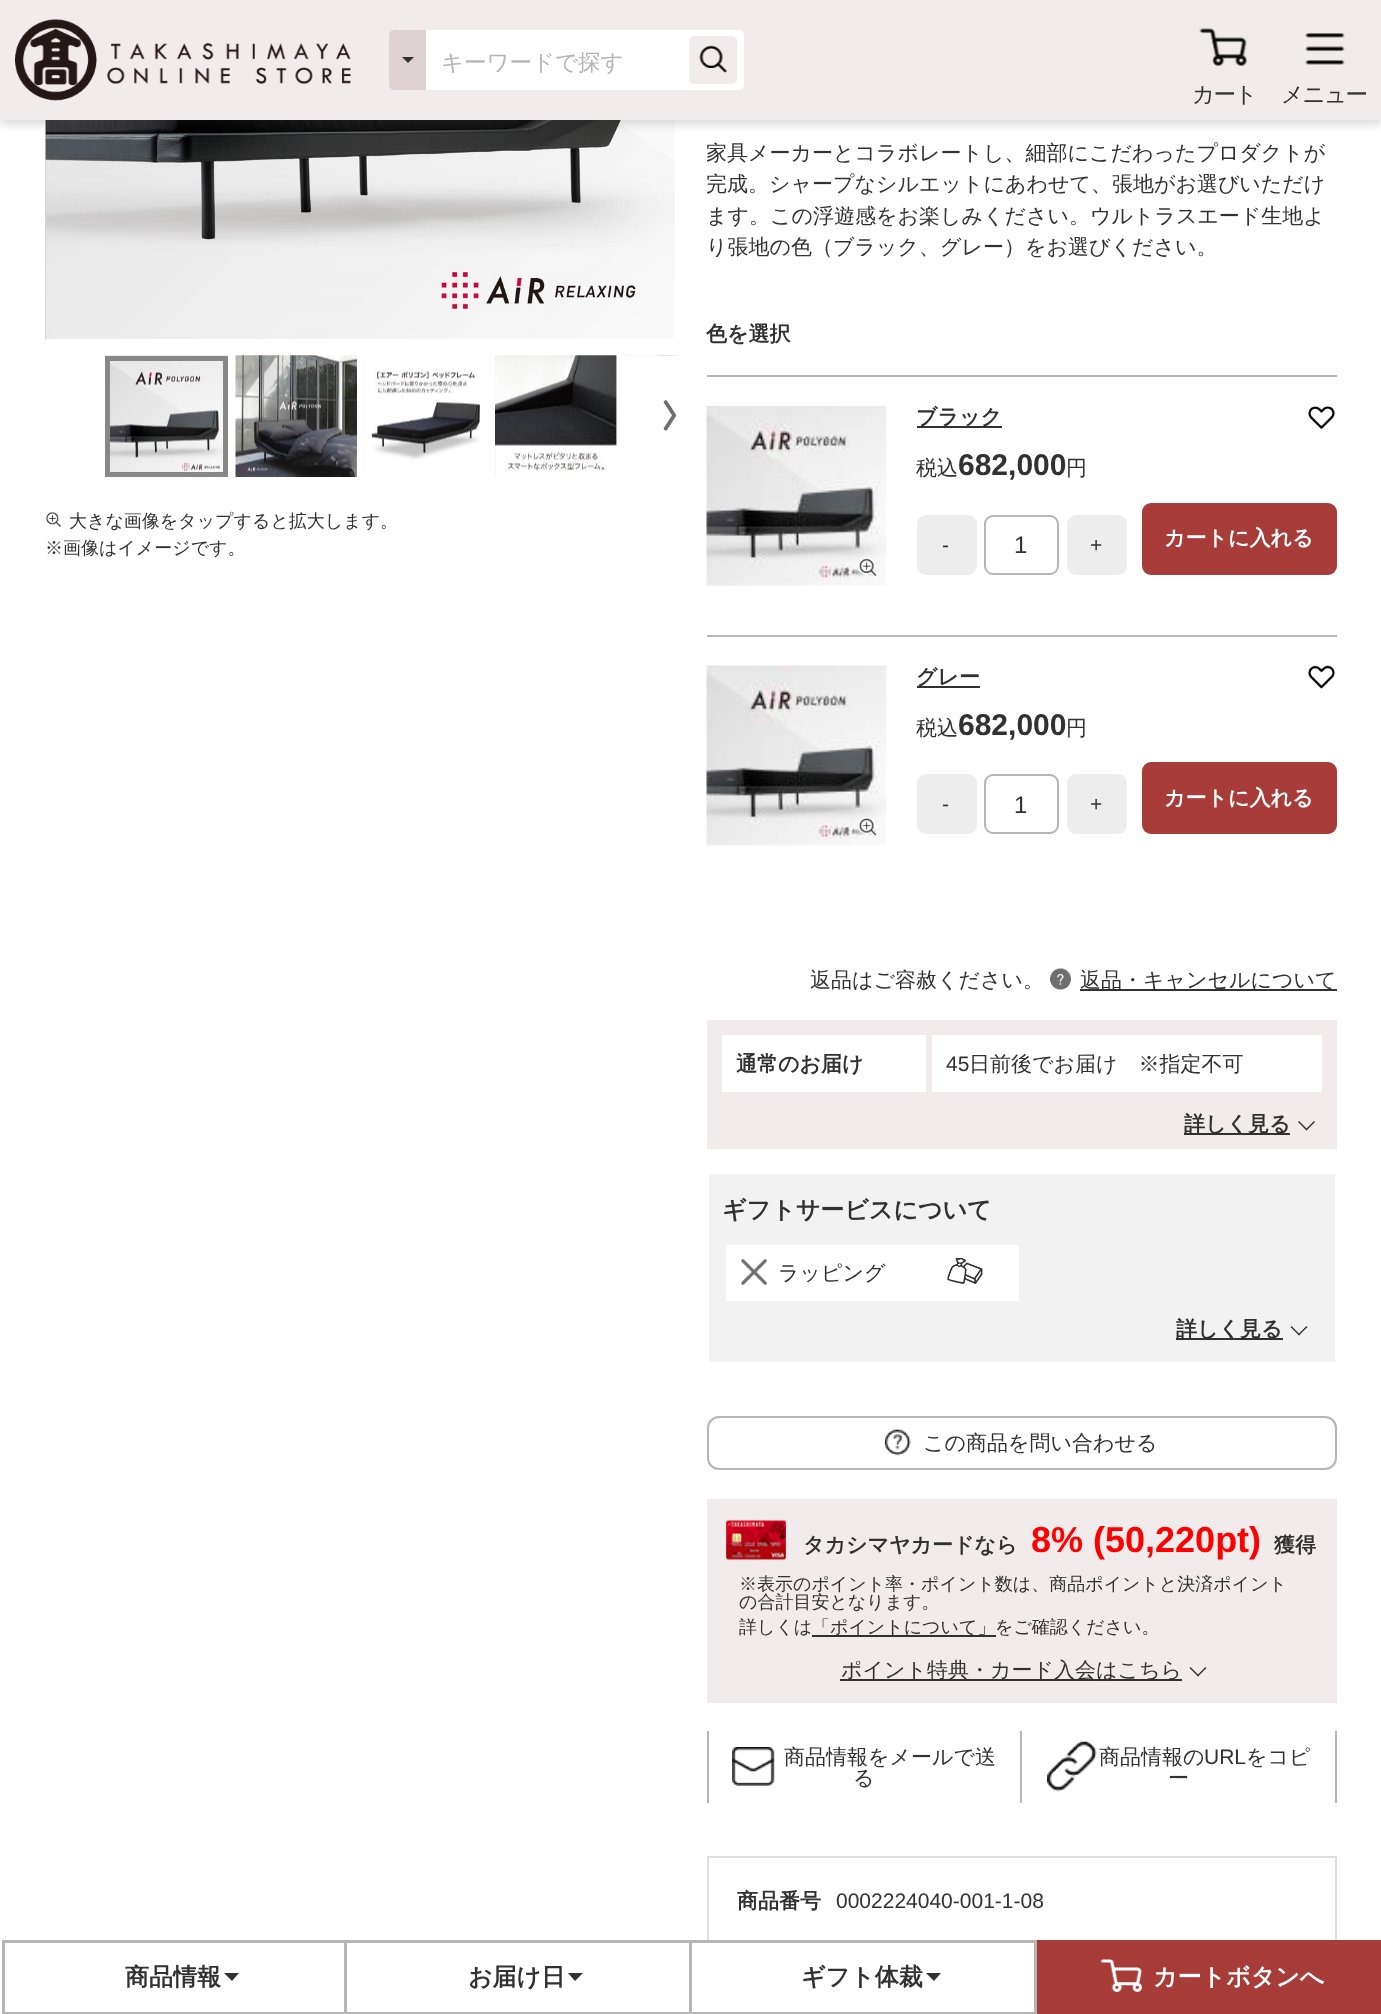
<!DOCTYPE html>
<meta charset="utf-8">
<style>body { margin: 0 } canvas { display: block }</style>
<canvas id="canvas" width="1381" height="2014"></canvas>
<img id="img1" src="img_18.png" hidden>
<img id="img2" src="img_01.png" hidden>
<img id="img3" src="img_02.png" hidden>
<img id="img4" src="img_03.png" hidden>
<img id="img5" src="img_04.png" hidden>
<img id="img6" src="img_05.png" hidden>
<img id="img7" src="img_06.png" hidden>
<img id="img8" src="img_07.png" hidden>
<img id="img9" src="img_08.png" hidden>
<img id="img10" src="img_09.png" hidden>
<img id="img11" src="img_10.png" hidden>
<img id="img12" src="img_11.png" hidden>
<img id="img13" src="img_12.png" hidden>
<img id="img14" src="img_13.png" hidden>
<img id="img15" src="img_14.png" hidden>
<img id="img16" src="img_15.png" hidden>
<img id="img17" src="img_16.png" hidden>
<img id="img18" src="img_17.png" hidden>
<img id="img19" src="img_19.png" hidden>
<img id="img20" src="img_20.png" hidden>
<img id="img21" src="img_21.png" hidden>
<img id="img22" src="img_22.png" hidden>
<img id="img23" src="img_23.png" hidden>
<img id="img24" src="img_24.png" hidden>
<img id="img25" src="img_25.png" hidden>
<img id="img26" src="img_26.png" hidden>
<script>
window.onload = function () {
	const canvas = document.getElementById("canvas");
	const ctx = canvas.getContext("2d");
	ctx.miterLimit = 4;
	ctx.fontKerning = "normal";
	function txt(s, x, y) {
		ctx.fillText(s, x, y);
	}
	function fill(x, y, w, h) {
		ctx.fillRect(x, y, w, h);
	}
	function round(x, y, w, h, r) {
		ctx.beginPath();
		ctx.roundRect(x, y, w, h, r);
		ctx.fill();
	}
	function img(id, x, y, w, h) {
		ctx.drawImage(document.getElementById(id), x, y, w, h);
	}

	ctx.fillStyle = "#FFFFFF";
	fill(0, 0, 1381, 2014);
	img("img1", 45, 120, 630, 220);
	ctx.fillStyle = "rgba(49, 49, 49, 0.16)";
	ctx.filter = "blur(4.5px)";
	ctx.beginPath();
	ctx.rect(0, 5, 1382, 120);
	ctx.fill();
	ctx.filter = "none";
	ctx.fillStyle = "#F2EBEB";
	fill(0, 0, 1381, 120);
	img("img2", 15, 19, 336, 82);
	ctx.fillStyle = "#FFFFFF";
	round(389, 30, 355, 60, 5);
	ctx.fillStyle = "#DED1D1";
	ctx.beginPath();
	ctx.roundRect(389, 30, 37, 60, [5, 0, 0, 5]);
	ctx.fill();
	ctx.fillStyle = "#313131";
	ctx.beginPath();
	ctx.moveTo(402, 57);
	ctx.lineTo(414, 57);
	ctx.lineTo(408, 63);
	ctx.closePath();
	ctx.fill();
	ctx.fillStyle = "#F2EBEB";
	round(689, 36, 48, 48, 5);
	img("img3", 699, 45, 28, 28);
	img("img4", 1199, 28, 48, 38);
	img("img5", 1305, 33, 40, 32);
	ctx.fillStyle = "#B5B5B5";
	fill(707, 375, 630, 2);
	img("img6", 706, 406, 181, 180);
	img("img7", 858, 557, 20, 19);
	ctx.fillStyle = "#313131";
	fill(917, 426, 85, 2);
	img("img8", 1308, 406, 27, 24);
	ctx.fillStyle = "#EDEDED";
	round(917, 515, 60, 60, 9);
	ctx.beginPath();
	ctx.roundRect(985, 516, 73, 58, 8);
	ctx.strokeStyle = "#B5B5B5";
	ctx.lineWidth = 2;
	ctx.stroke();
	round(1067, 515, 60, 60, 9);
	ctx.fillStyle = "#A83C38";
	round(1142, 503, 195, 72, 9);
	ctx.fillStyle = "#B5B5B5";
	fill(707, 635, 630, 2);
	img("img9", 706, 665, 181, 181);
	img("img10", 858, 817, 20, 19);
	ctx.fillStyle = "#313131";
	fill(917, 686, 63, 2);
	img("img11", 1308, 665, 27, 24);
	ctx.fillStyle = "#EDEDED";
	round(917, 774, 60, 60, 9);
	ctx.beginPath();
	ctx.roundRect(985, 775, 73, 58, 8);
	ctx.stroke();
	round(1067, 774, 60, 60, 9);
	ctx.fillStyle = "#A83C38";
	round(1142, 762, 195, 72, 9);
	img("img12", 1050, 968, 21, 22);
	ctx.fillStyle = "#313131";
	fill(1080, 989, 257, 2);
	ctx.fillStyle = "#F2EBEB";
	fill(707, 1020, 630, 129);
	ctx.fillStyle = "#FFFFFF";
	fill(722, 1035, 204, 57);
	fill(932, 1035, 390, 57);
	ctx.fillStyle = "#313131";
	fill(1184, 1133, 106, 2);
	ctx.beginPath();
	ctx.moveTo(1315, 1122);
	ctx.lineTo(1306.5, 1130.5);
	ctx.lineTo(1305.5, 1129.5);
	ctx.lineTo(1314, 1121);
	ctx.closePath();
	ctx.fill();
	ctx.beginPath();
	ctx.moveTo(1307.5, 1129.5);
	ctx.lineTo(1306.5, 1130.5);
	ctx.lineTo(1298, 1122);
	ctx.lineTo(1299, 1121);
	ctx.closePath();
	ctx.fill();
	ctx.fillStyle = "#F2F2F2";
	fill(709, 1174, 626, 188);
	ctx.fillStyle = "#FFFFFF";
	fill(726, 1245, 293, 56);
	img("img13", 741, 1259, 26, 26);
	img("img14", 947, 1257, 36, 27);
	ctx.fillStyle = "#313131";
	fill(1176, 1338, 107, 2);
	ctx.beginPath();
	ctx.moveTo(1307.5, 1327);
	ctx.lineTo(1299, 1335.5);
	ctx.lineTo(1298, 1334.5);
	ctx.lineTo(1306.5, 1326);
	ctx.closePath();
	ctx.fill();
	ctx.beginPath();
	ctx.moveTo(1300, 1334.5);
	ctx.lineTo(1299, 1335.5);
	ctx.lineTo(1290.5, 1327);
	ctx.lineTo(1291.5, 1326);
	ctx.closePath();
	ctx.fill();
	ctx.beginPath();
	ctx.roundRect(708, 1417, 628, 52, 11);
	ctx.stroke();
	img("img15", 885, 1429, 26, 27);
	ctx.fillStyle = "#F2EBEB";
	fill(707, 1499, 630, 204);
	img("img16", 726, 1520, 60, 40);
	ctx.fillStyle = "#313131";
	fill(812, 1635, 184, 2);
	fill(840, 1679, 342, 2);
	ctx.beginPath();
	ctx.moveTo(1206.5, 1668);
	ctx.lineTo(1198, 1676.5);
	ctx.lineTo(1197, 1675.5);
	ctx.lineTo(1205.5, 1667);
	ctx.closePath();
	ctx.fill();
	ctx.beginPath();
	ctx.moveTo(1199, 1675.5);
	ctx.lineTo(1198, 1676.5);
	ctx.lineTo(1189.5, 1668);
	ctx.lineTo(1190.5, 1667);
	ctx.closePath();
	ctx.fill();
	ctx.fillStyle = "#B5B5B5";
	fill(707, 1731, 2, 72);
	img("img17", 732, 1747, 43, 39);
	fill(1335, 1731, 2, 72);
	fill(1020, 1731, 2, 72);
	img("img18", 1047, 1741, 50, 51);
	ctx.strokeStyle = "#DEDEDE";
	ctx.strokeRect(708, 1857, 628, 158);
	img("img19", 105, 355, 123, 117);
	ctx.strokeStyle = "#888888";
	ctx.lineWidth = 5;
	ctx.strokeRect(107.5, 358.5, 118, 116);
	img("img20", 235, 355, 122, 122);
	img("img21", 364, 355, 117, 122);
	img("img22", 495, 355, 122, 122);
	img("img23", 624, 355, 53, 1);
	img("img24", 663, 400, 14, 31);
	img("img25", 45, 511, 16, 16);
	ctx.fillStyle = "#FFFFFF";
	fill(707, 1943, 2, 69);
	ctx.strokeStyle = "#B5B5B5";
	ctx.lineWidth = 3;
	ctx.strokeRect(3.5, 1941.5, 342, 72);
	ctx.fillStyle = "#313131";
	ctx.beginPath();
	ctx.moveTo(224, 1973);
	ctx.lineTo(239, 1973);
	ctx.lineTo(232, 1981);
	ctx.closePath();
	ctx.fill();
	ctx.fillStyle = "#B5B5B5";
	fill(347, 1940, 690, 3);
	fill(689, 1940, 3, 74);
	fill(347, 2012, 345, 2);
	ctx.fillStyle = "#313131";
	ctx.beginPath();
	ctx.moveTo(568, 1973);
	ctx.lineTo(583, 1973);
	ctx.lineTo(575, 1981);
	ctx.closePath();
	ctx.fill();
	ctx.fillStyle = "#B5B5B5";
	fill(1034, 1940, 3, 74);
	fill(692, 2012, 345, 2);
	ctx.fillStyle = "#313131";
	ctx.beginPath();
	ctx.moveTo(926, 1973);
	ctx.lineTo(941, 1973);
	ctx.lineTo(934, 1981);
	ctx.closePath();
	ctx.fill();
	ctx.fillStyle = "#A83C38";
	fill(1037, 1940, 344, 74);
	img("img26", 1100, 1959, 43, 33);
	ctx.font = "500 22.5px WenQuanYi Zen Hei";
	ctx.fillStyle = "#B5B5B5";
	txt("キーワードで探す", 441, 70);
	ctx.letterSpacing = "-1.5px";
	ctx.fillStyle = "#313131";
	txt("カート", 1192, 102);
	txt("メニュー", 1281, 102);
	ctx.save();
	ctx.beginPath();
	ctx.rect(707, 138, 630, 126);
	ctx.clip();
	ctx.letterSpacing = "0px";
	ctx.font = "500 21px WenQuanYi Zen Hei";
	txt("家具メーカーとコラボレートし、細部にこだわったプロダクトが", 706, 160);
	ctx.restore();
	ctx.letterSpacing = "0px";
	ctx.font = "500 21px WenQuanYi Zen Hei";
	txt("完成。シャープなシルエットにあわせて、張地がお選びいただけ", 706, 191);
	txt("ます。この浮遊感をお楽しみください。ウルトラスエード生地よ", 706, 223);
	txt("り張地の色（ブラック、グレー）をお選びください。", 706, 254);
	ctx.font = "bold 21px WenQuanYi Zen Hei";
	txt("色を選択", 706, 341);
	txt("ブラック", 916, 424);
	ctx.font = "500 21px WenQuanYi Zen Hei";
	txt("税込", 916, 475);
	ctx.font = "bold 30px Liberation Sans";
	txt("682,000", 958, 475);
	ctx.font = "500 21px WenQuanYi Zen Hei";
	txt("円", 1066, 475);
	ctx.font = "21px Liberation Sans";
	txt("-", 942, 552);
	ctx.font = "24px Liberation Sans";
	txt("1", 1014, 553);
	ctx.font = "21px Liberation Sans";
	txt("+", 1090, 552);
	ctx.font = "bold 21px WenQuanYi Zen Hei";
	ctx.fillStyle = "#FFFFFF";
	txt("カートに入れる", 1164, 545);
	ctx.fillStyle = "#313131";
	txt("グレー", 916, 684);
	ctx.font = "500 21px WenQuanYi Zen Hei";
	txt("税込", 916, 735);
	ctx.font = "bold 30px Liberation Sans";
	txt("682,000", 958, 735);
	ctx.font = "500 21px WenQuanYi Zen Hei";
	txt("円", 1066, 735);
	ctx.font = "21px Liberation Sans";
	txt("-", 942, 811);
	ctx.font = "24px Liberation Sans";
	txt("1", 1014, 813);
	ctx.font = "21px Liberation Sans";
	txt("+", 1090, 811);
	ctx.font = "bold 21px WenQuanYi Zen Hei";
	ctx.fillStyle = "#FFFFFF";
	txt("カートに入れる", 1164, 805);
	ctx.font = "500 21px WenQuanYi Zen Hei";
	ctx.fillStyle = "#313131";
	txt("返品はご容赦ください。", 810, 987);
	txt("返品・キャンセルについて", 1080, 987);
	ctx.font = "bold 21px WenQuanYi Zen Hei";
	txt("通常のお届け", 736, 1071);
	ctx.font = "21px Liberation Sans";
	txt("45", 946, 1071);
	ctx.font = "500 21px WenQuanYi Zen Hei";
	txt("日前後でお届け　※指定不可", 969, 1071);
	ctx.font = "bold 21px WenQuanYi Zen Hei";
	txt("詳しく見る", 1184, 1131);
	ctx.font = "bold 24px WenQuanYi Zen Hei";
	txt("ギフトサービスについて", 722, 1218);
	ctx.font = "500 21px WenQuanYi Zen Hei";
	txt("ラッピング", 778, 1280);
	ctx.font = "bold 21px WenQuanYi Zen Hei";
	txt("詳しく見る", 1176, 1336);
	ctx.font = "500 21px WenQuanYi Zen Hei";
	txt("この商品を問い合わせる", 923, 1450);
	ctx.font = "bold 21px WenQuanYi Zen Hei";
	txt("タカシマヤカードなら", 803, 1552);
	ctx.font = "bold 36px Liberation Sans";
	ctx.fillStyle = "#FF0000";
	txt("8% (50,220pt)", 1031, 1552);
	ctx.font = "bold 21px WenQuanYi Zen Hei";
	ctx.fillStyle = "#313131";
	txt("獲得", 1274, 1552);
	ctx.font = "500 18px WenQuanYi Zen Hei";
	txt("※表示のポイント率・ポイント数は、商品ポイントと決済ポイント", 739, 1590);
	txt("の合計目安となります。", 739, 1608);
	txt("詳しくは", 739, 1633);
	txt("「ポイントについて」", 812, 1633);
	txt("をご確認ください。", 995, 1633);
	ctx.font = "500 21px WenQuanYi Zen Hei";
	txt("ポイント特典・カード入会はこちら", 841, 1677);
	txt("商品情報をメールで送", 784, 1764);
	txt("る", 853, 1785);
	txt("商品情報の", 1099, 1764);
	ctx.font = "21px Liberation Sans";
	txt("URL", 1204, 1764);
	ctx.font = "500 21px WenQuanYi Zen Hei";
	txt("をコピ", 1246, 1764);
	txt("ー", 1168, 1785);
	ctx.font = "bold 21px WenQuanYi Zen Hei";
	txt("商品番号", 737, 1908);
	ctx.font = "21px Liberation Sans";
	txt("0002224040-001-1-08", 836, 1908);
	ctx.font = "500 18px WenQuanYi Zen Hei";
	txt("大きな画像をタップすると拡大します。", 69, 527);
	txt("※画像はイメージです。", 45, 554);
	ctx.font = "bold 24px WenQuanYi Zen Hei";
	txt("商品情報", 125, 1985);
	txt("お届け日", 468, 1985);
	txt("ギフト体裁", 801, 1985);
	ctx.fillStyle = "#FFFFFF";
	txt("カートボタンへ", 1153, 1985);
};
</script>
